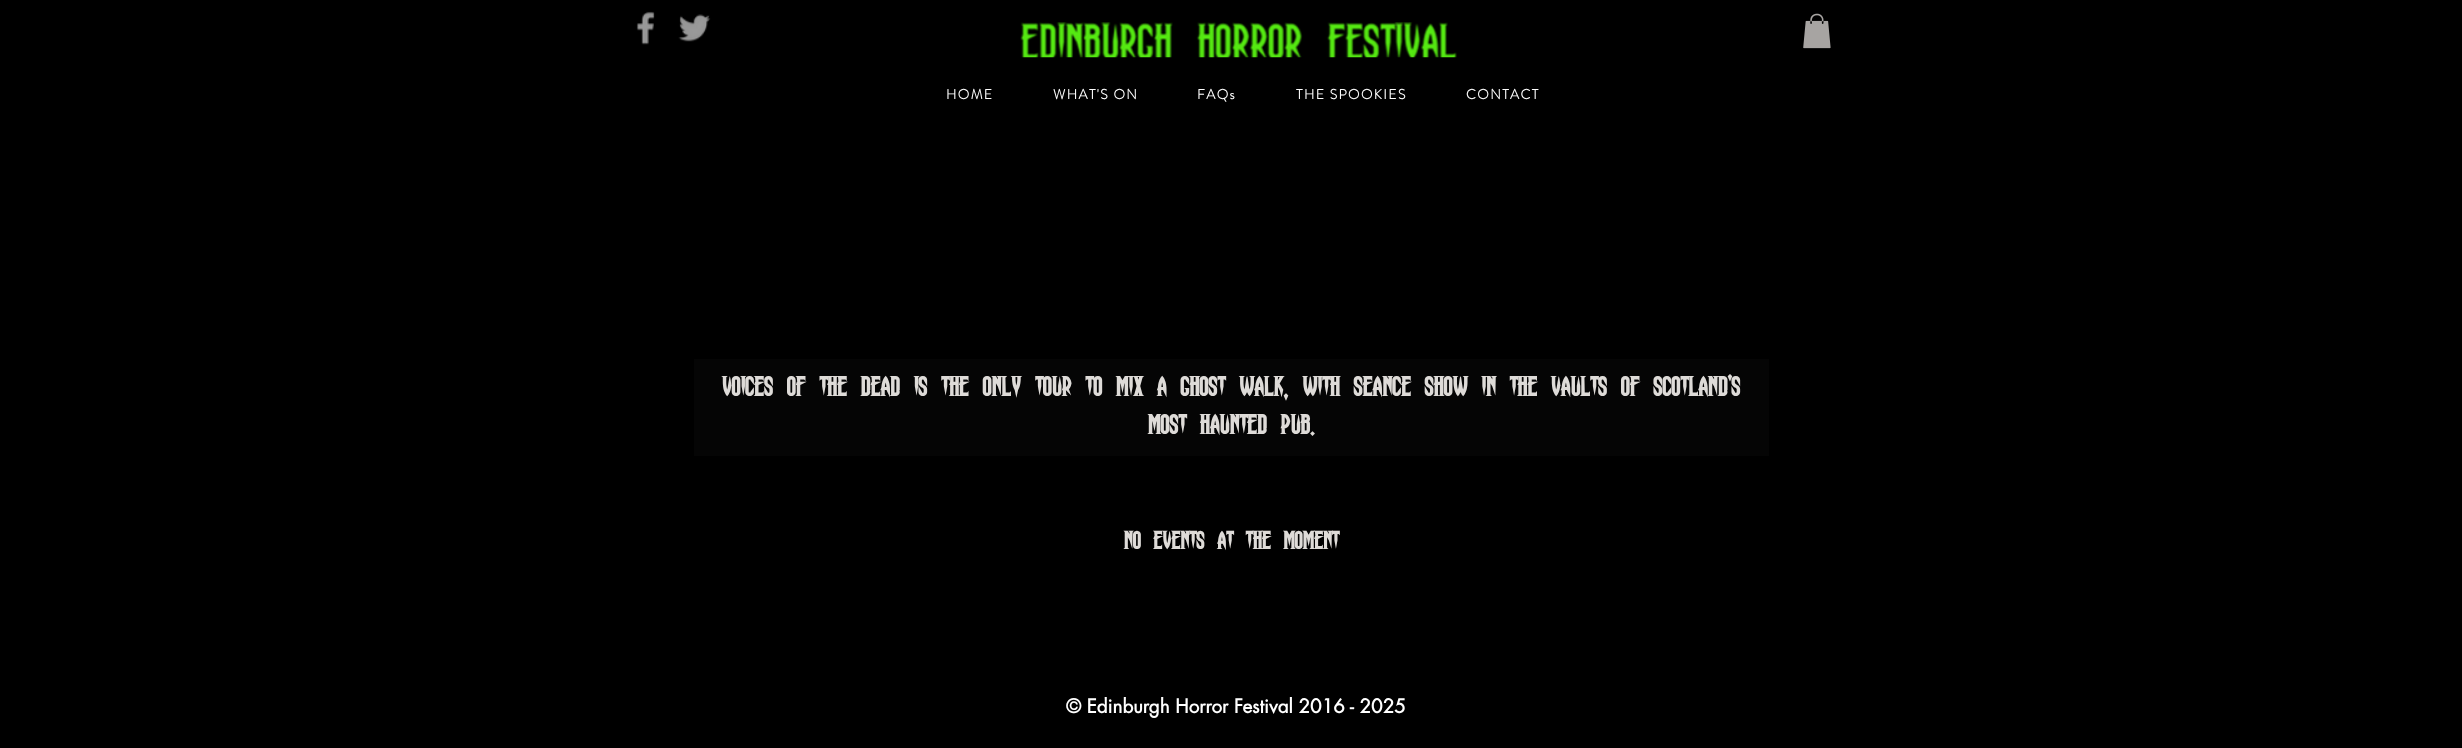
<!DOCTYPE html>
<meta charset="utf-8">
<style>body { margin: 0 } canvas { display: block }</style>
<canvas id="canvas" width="2462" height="748"></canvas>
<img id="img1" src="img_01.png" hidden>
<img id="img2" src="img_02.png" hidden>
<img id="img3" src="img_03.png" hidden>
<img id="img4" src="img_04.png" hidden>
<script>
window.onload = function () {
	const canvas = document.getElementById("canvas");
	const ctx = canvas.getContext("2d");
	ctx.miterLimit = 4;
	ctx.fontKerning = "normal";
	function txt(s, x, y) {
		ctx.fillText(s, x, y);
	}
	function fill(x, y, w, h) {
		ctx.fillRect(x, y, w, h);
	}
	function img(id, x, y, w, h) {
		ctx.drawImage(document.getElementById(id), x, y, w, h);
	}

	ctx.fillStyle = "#000000";
	fill(0, 0, 2462, 748);
	img("img1", 636, 11, 19, 34);
	img("img2", 678, 14, 33, 28);
	img("img3", 1020, 22, 437, 36);
	img("img4", 1803, 13, 28, 36);
	ctx.fillStyle = "#050505";
	fill(694, 359, 1075, 97);
	ctx.letterSpacing = "1.4px";
	ctx.font = "bold 13.75px 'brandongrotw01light'";
	ctx.fillStyle = "#FFFFFF";
	txt("HOME", 946, 99);
	txt("WHAT'S ON", 1053, 99);
	txt("FAQs", 1197, 99);
	txt("THE SPOOKIES", 1296, 99);
	txt("CONTACT", 1466, 99);
	ctx.letterSpacing = "0px";
	ctx.font = "bold 27.5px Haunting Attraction";
	ctx.fillStyle = "#DEDBD8";
	txt("Voices of the Dead is the only tour to mix a ghost walk, with seance show in the vaults of Scotland's", 722, 396);
	txt("most Haunted Pub.", 1148, 434);
	ctx.font = "bold 25px Haunting Attraction";
	txt("No events at the moment", 1124, 549);
	ctx.font = "bold 18.75px futura";
	ctx.fillStyle = "#FFFFFF";
	txt("© Edinburgh Horror Festival 2016 - 2025", 1066, 713);
};
</script>
